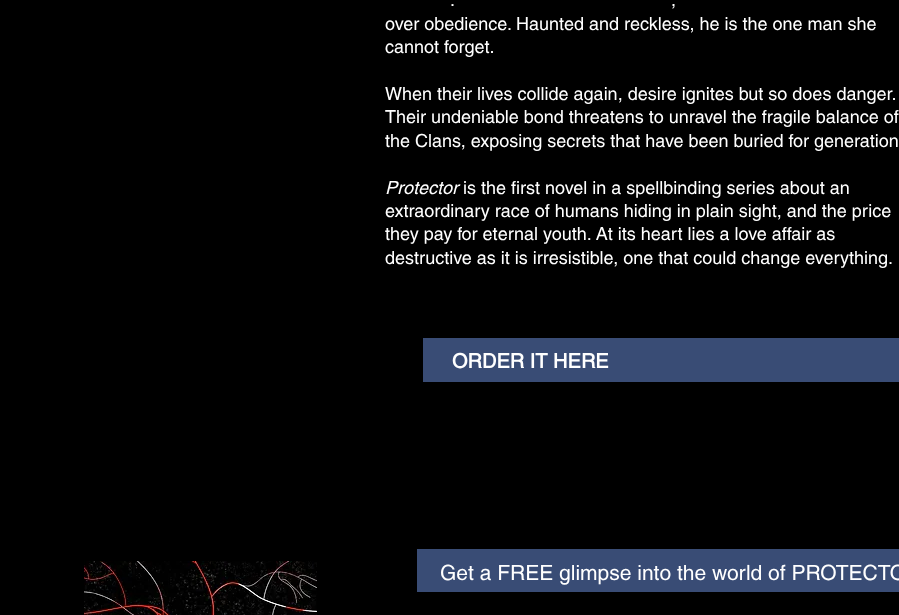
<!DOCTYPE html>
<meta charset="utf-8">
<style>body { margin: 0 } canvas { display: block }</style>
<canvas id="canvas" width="899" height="615"></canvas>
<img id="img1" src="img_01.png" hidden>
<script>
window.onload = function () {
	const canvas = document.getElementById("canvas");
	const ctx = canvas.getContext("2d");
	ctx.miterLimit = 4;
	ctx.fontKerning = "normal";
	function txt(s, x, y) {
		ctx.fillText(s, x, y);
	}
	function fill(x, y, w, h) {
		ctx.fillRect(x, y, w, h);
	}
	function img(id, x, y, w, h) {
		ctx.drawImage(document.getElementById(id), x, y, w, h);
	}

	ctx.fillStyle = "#000000";
	fill(0, 0, 899, 615);
	ctx.fillStyle = "#394C75";
	fill(423, 338, 476, 44);
	img("img1", 84, 561, 233, 54);
	fill(417, 549, 482, 43);
	ctx.font = "18px helvetica";
	ctx.fillStyle = "#FFFFFF";
	txt(".", 450, 6);
	txt(",", 671, 6);
	txt("over obedience. Haunted and reckless, he is the one man she", 385, 30);
	txt("cannot forget.", 385, 53);
	txt("When their lives collide again, desire ignites but so does danger.", 385, 100);
	txt("Their undeniable bond threatens to unravel the fragile balance of", 385, 123);
	txt("the Clans, exposing secrets that have been buried for generation", 385, 147);
	ctx.font = "italic 18px helvetica";
	txt("Protector", 385, 194);
	ctx.font = "18px helvetica";
	txt("is the first novel in a spellbinding series about an", 463, 194);
	txt("extraordinary race of humans hiding in plain sight, and the price", 385, 217);
	txt("they pay for eternal youth. At its heart lies a love affair as", 385, 240);
	txt("destructive as it is irresistible, one that could change everything.", 385, 264);
	ctx.font = "bold 20px helvetica";
	txt("ORDER IT HERE", 452, 368);
	ctx.font = "21px helvetica";
	txt("Get a FREE glimpse into the world of PROTECTO", 440, 580);
};
</script>
